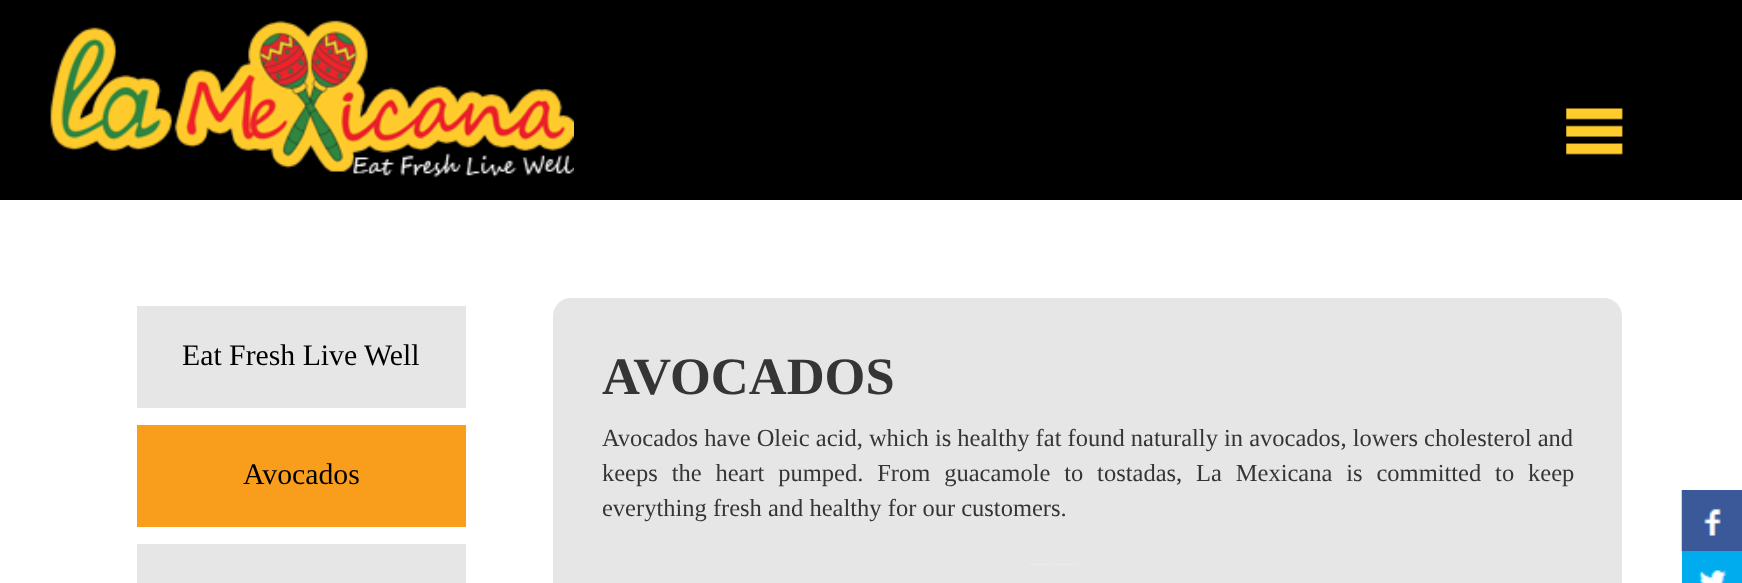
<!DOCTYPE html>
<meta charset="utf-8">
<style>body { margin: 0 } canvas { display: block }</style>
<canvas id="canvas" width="1742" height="583"></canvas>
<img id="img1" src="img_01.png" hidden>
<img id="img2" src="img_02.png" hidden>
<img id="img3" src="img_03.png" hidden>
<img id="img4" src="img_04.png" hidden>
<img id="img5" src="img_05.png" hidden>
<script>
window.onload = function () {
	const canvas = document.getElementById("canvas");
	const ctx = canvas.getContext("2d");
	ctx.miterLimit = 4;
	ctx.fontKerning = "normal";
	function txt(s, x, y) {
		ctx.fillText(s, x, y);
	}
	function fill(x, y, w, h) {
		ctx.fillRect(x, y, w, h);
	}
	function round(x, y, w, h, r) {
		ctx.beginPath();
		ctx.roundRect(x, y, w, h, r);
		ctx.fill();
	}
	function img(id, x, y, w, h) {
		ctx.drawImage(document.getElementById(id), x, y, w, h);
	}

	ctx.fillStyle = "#FFFFFF";
	fill(0, 0, 1742, 583);
	ctx.fillStyle = "#000000";
	fill(0, 0, 1742, 200);
	img("img1", 50, 20, 524, 158);
	img("img2", 1566, 108, 57, 47);
	ctx.fillStyle = "#E7E6E6";
	fill(137, 306, 329, 102);
	ctx.fillStyle = "#F99D1C";
	fill(137, 425, 329, 102);
	ctx.fillStyle = "#E7E6E6";
	fill(137, 544, 329, 39);
	round(553, 298, 1069, 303, 18);
	img("img3", 1028, 564, 51, 1);
	img("img4", 1681, 490, 61, 62);
	img("img5", 1682, 551, 60, 32);
	ctx.font = "29.75px Liberation Serif";
	ctx.fillStyle = "#000000";
	txt("Eat Fresh Live Well", 182, 365);
	txt("Avocados", 243, 484);
	ctx.font = "bold 52.5px Liberation Serif";
	ctx.fillStyle = "#353535";
	txt("AVOCADOS", 602, 394);
	ctx.font = "24.5px Liberation Serif";
	txt("Avocados have Oleic acid, which is healthy fat found naturally in avocados, lowers cholesterol and", 602, 446);
	ctx.wordSpacing = "7.75px";
	txt("keeps the heart pumped. From guacamole to tostadas, La Mexicana is committed to keep", 602, 481);
	ctx.wordSpacing = "0px";
	txt("everything fresh and healthy for our customers.", 602, 516);
};
</script>
